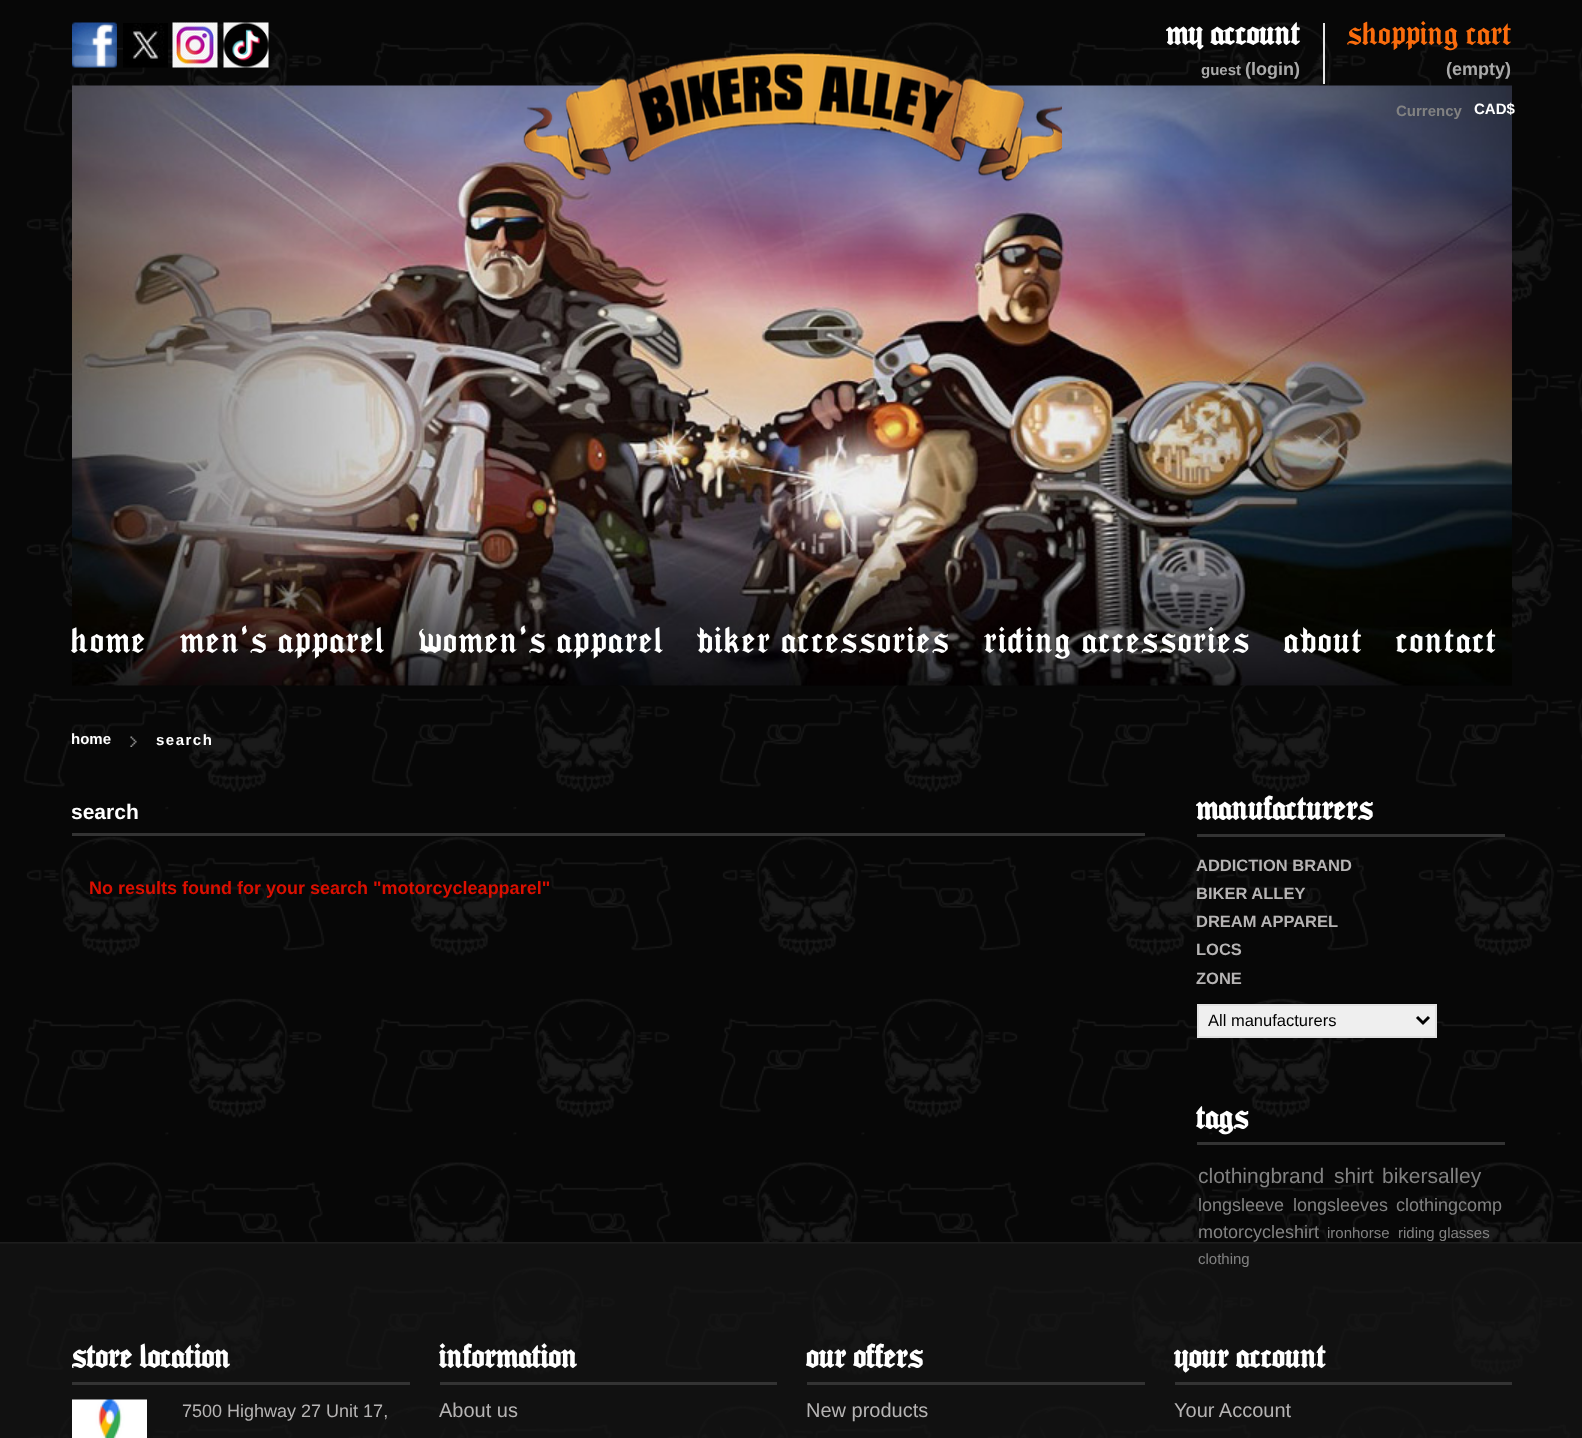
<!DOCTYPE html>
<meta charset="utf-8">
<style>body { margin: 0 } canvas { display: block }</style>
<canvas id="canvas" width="1582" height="1438"></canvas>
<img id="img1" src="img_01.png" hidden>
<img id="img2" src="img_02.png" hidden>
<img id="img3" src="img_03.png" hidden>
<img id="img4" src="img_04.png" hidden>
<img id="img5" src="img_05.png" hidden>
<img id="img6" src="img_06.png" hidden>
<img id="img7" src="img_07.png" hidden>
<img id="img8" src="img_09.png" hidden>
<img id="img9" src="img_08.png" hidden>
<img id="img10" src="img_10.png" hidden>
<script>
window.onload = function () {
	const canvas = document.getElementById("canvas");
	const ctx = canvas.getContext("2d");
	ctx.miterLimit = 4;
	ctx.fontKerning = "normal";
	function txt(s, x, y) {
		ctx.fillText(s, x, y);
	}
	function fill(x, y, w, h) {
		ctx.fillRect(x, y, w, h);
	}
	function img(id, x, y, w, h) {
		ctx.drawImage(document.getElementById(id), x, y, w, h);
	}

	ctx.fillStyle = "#FFFFFF";
	fill(0, 0, 1582, 1438);
	img("img1", 0, 0, 1582, 1242);
	img("img2", 0, 1242, 1582, 196);
	ctx.fillStyle = "#E5E5E5";
	fill(1323, 23, 2, 61);
	ctx.fillStyle = "#333333";
	fill(72, 833, 1073, 3);
	img("img3", 130, 736, 7, 11);
	fill(1197, 834, 308, 3);
	ctx.fillStyle = "#EFEFEF";
	ctx.beginPath();
	ctx.rect(1198, 1005, 238, 32);
	ctx.fill();
	ctx.strokeStyle = "#E1E1E1";
	ctx.lineWidth = 2;
	ctx.stroke();
	ctx.beginPath();
	ctx.moveTo(1417, 1017);
	ctx.lineTo(1423, 1023);
	ctx.lineTo(1429, 1017);
	ctx.strokeStyle = "#000000";
	ctx.lineWidth = 3;
	ctx.stroke();
	ctx.fillStyle = "#333333";
	fill(1197, 1142, 308, 3);
	img("img4", 72, 22, 45, 46);
	img("img5", 123, 23, 45, 45);
	img("img6", 172, 22, 46, 46);
	img("img7", 223, 22, 46, 46);
	img("img8", 72, 85, 1440, 601);
	img("img9", 523, 52, 539, 130);
	fill(72, 1382, 338, 3);
	img("img10", 72, 1399, 75, 39);
	fill(440, 1382, 337, 3);
	fill(807, 1382, 338, 3);
	fill(1175, 1382, 337, 3);
	ctx.font = "bold 30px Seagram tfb";
	ctx.fillStyle = "#FFFFFF";
	txt("my account", 1166, 45);
	ctx.font = "bold 15px Liberation Sans";
	ctx.fillStyle = "#AAAAAA";
	txt("guest", 1201, 75);
	ctx.font = "bold 18px Liberation Sans";
	txt("(login)", 1245, 75);
	ctx.font = "30px Seagram tfb";
	ctx.fillStyle = "#FA6C0D";
	txt("shopping cart", 1347, 45);
	ctx.font = "bold 18px Liberation Sans";
	ctx.fillStyle = "#AAAAAA";
	txt("(empty)", 1446, 75);
	ctx.font = "bold 15px Liberation Sans";
	ctx.fillStyle = "#828282";
	txt("Currency", 1396, 116);
	ctx.fillStyle = "#FFFFFF";
	txt("CAD$", 1474, 114);
	ctx.letterSpacing = "1.5px";
	ctx.font = "33px Seagram tfb";
	txt("home", 71, 653);
	txt("men's apparel", 180, 653);
	txt("women's apparel", 419, 653);
	txt("biker accessories", 697, 653);
	txt("riding accessories", 984, 653);
	txt("about", 1284, 653);
	txt("contact", 1396, 653);
	ctx.letterSpacing = "0px";
	ctx.font = "bold 15px Liberation Sans";
	txt("home", 71, 744);
	ctx.letterSpacing = "1.5px";
	txt("search", 156, 745);
	ctx.letterSpacing = "0px";
	ctx.font = "bold 21px Liberation Sans";
	txt("search", 71, 819);
	ctx.font = "bold 18px Liberation Sans";
	ctx.fillStyle = "#DA0F00";
	txt("No results found for your search \"motorcycleapparel\"", 89, 894);
	ctx.font = "bold 30px Seagram tfb";
	ctx.fillStyle = "#FFFFFF";
	txt("manufacturers", 1196, 820);
	ctx.font = "bold 16.5px Liberation Sans";
	ctx.fillStyle = "#B6B4B4";
	txt("ADDICTION BRAND", 1196, 871);
	txt("BIKER ALLEY", 1196, 899);
	txt("DREAM APPAREL", 1196, 927);
	txt("LOCS", 1196, 955);
	txt("ZONE", 1196, 984);
	ctx.font = "16.5px Liberation Sans";
	ctx.fillStyle = "#000000";
	txt("All manufacturers", 1208, 1026);
	ctx.font = "bold 30px Seagram tfb";
	ctx.fillStyle = "#FFFFFF";
	txt("tags", 1196, 1129);
	ctx.font = "21px Liberation Sans";
	ctx.fillStyle = "#828282";
	txt("clothingbrand", 1198, 1183);
	txt("shirt", 1334, 1183);
	txt("bikersalley", 1382, 1183);
	ctx.font = "18px Liberation Sans";
	txt("longsleeve", 1198, 1211);
	txt("longsleeves", 1293, 1211);
	txt("clothingcomp", 1396, 1211);
	txt("motorcycleshirt", 1198, 1238);
	ctx.font = "15px Liberation Sans";
	txt("ironhorse", 1327, 1238);
	txt("riding glasses", 1398, 1238);
	txt("clothing", 1198, 1264);
	ctx.save();
	ctx.beginPath();
	ctx.rect(72, 1331, 1440, 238);
	ctx.clip();
	ctx.font = "bold 30px Seagram tfb";
	ctx.fillStyle = "#FFFFFF";
	txt("store location", 71, 1368);
	ctx.restore();
	ctx.font = "18px Liberation Sans";
	ctx.fillStyle = "#B6B4B4";
	txt("7500 Highway 27 Unit 17,", 182, 1417);
	ctx.font = "bold 30px Seagram tfb";
	ctx.fillStyle = "#FFFFFF";
	txt("information", 439, 1368);
	ctx.font = "20px Liberation Sans";
	ctx.fillStyle = "#B6B4B4";
	txt("About us", 439, 1417);
	ctx.font = "bold 30px Seagram tfb";
	ctx.fillStyle = "#FFFFFF";
	txt("our offers", 806, 1368);
	ctx.font = "20px Liberation Sans";
	ctx.fillStyle = "#B6B4B4";
	txt("New products", 806, 1417);
	ctx.font = "bold 30px Seagram tfb";
	ctx.fillStyle = "#FFFFFF";
	txt("your account", 1174, 1368);
	ctx.font = "20px Liberation Sans";
	ctx.fillStyle = "#B6B4B4";
	txt("Your Account", 1174, 1417);
};
</script>
